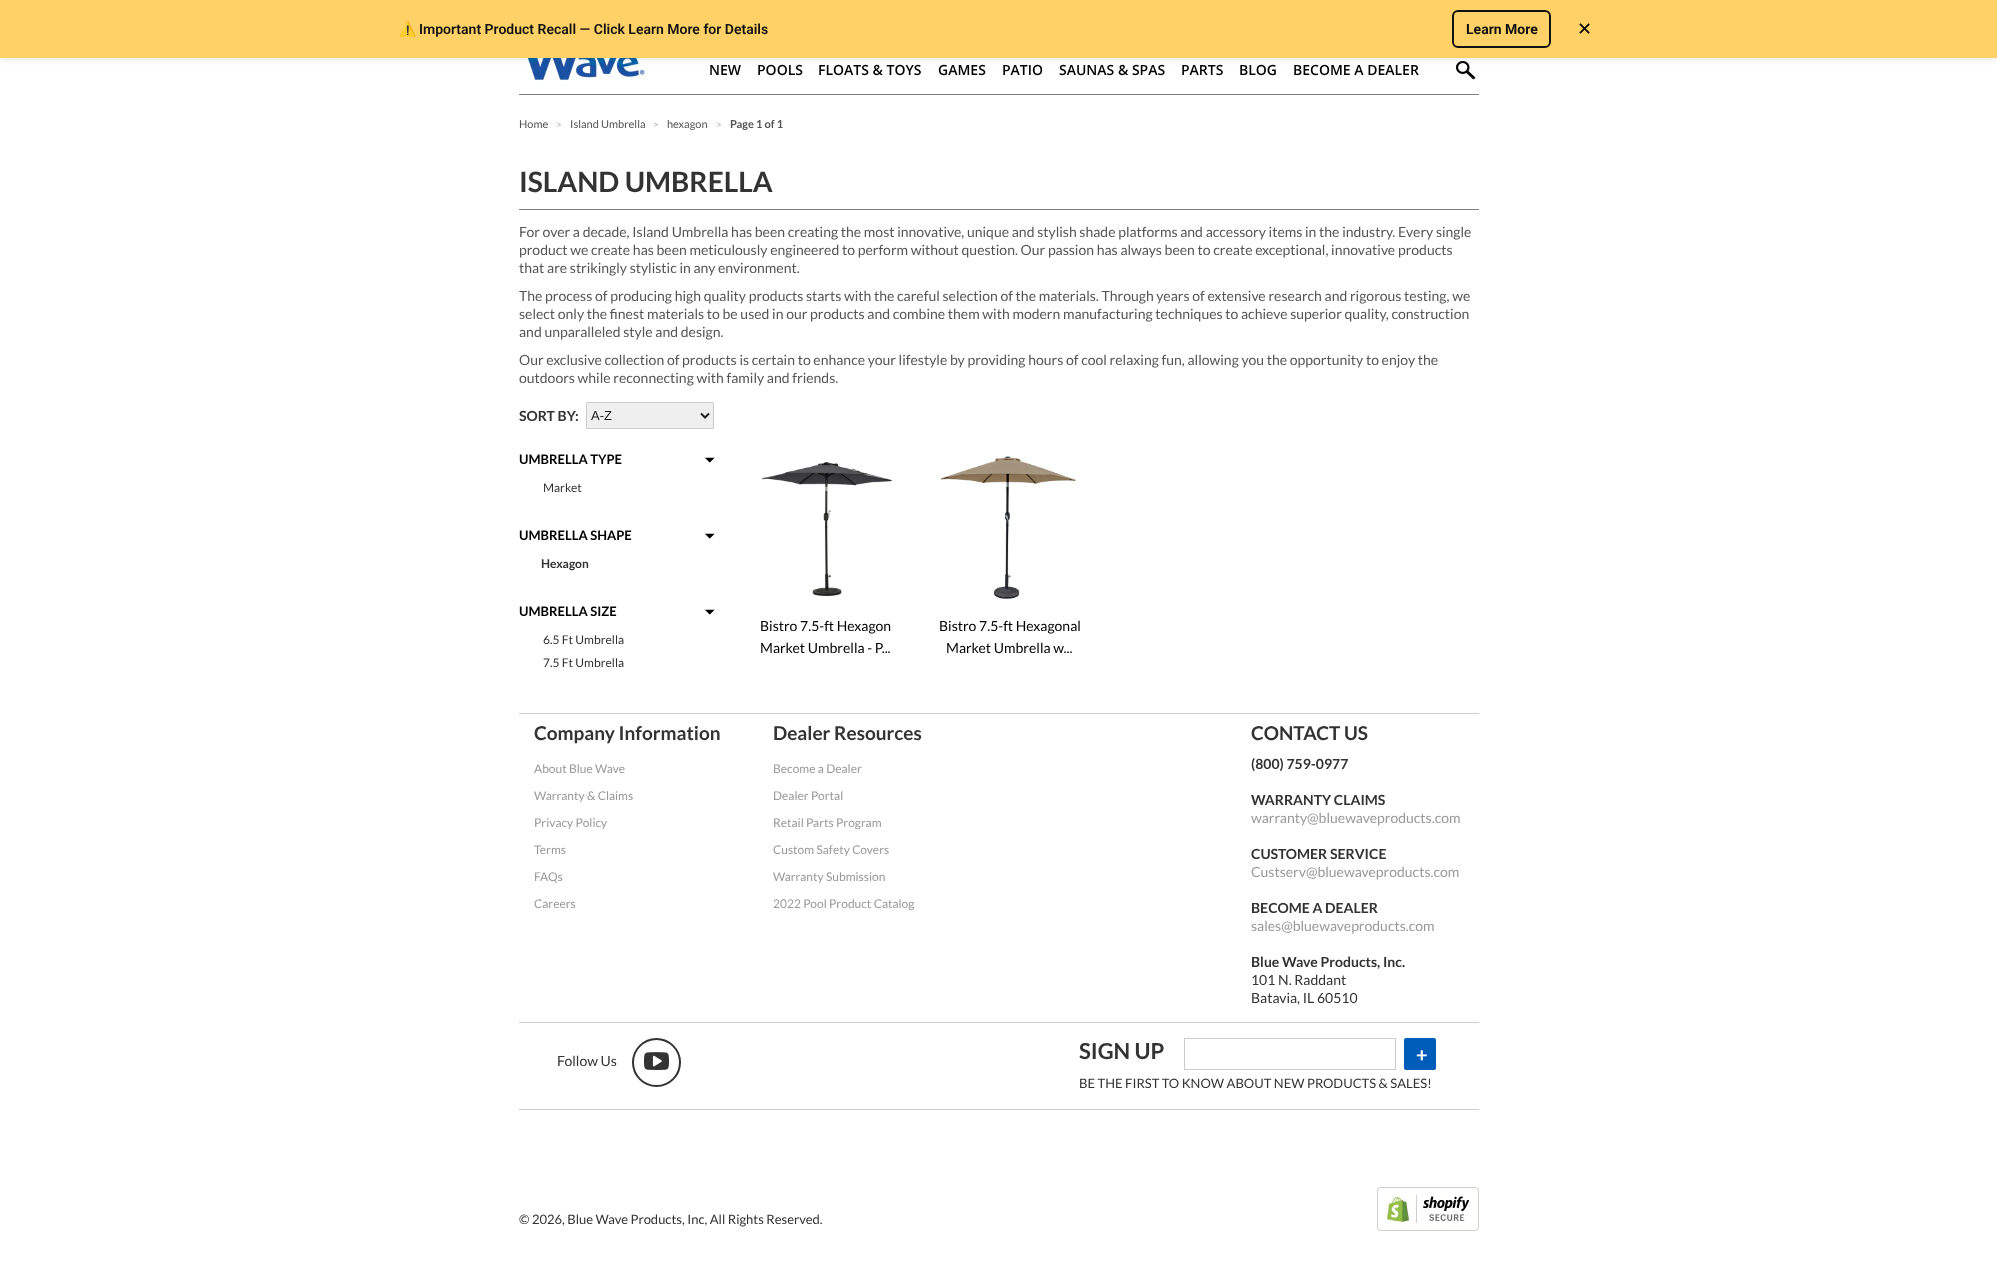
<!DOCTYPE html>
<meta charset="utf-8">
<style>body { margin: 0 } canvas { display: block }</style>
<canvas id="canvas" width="1997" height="1272"></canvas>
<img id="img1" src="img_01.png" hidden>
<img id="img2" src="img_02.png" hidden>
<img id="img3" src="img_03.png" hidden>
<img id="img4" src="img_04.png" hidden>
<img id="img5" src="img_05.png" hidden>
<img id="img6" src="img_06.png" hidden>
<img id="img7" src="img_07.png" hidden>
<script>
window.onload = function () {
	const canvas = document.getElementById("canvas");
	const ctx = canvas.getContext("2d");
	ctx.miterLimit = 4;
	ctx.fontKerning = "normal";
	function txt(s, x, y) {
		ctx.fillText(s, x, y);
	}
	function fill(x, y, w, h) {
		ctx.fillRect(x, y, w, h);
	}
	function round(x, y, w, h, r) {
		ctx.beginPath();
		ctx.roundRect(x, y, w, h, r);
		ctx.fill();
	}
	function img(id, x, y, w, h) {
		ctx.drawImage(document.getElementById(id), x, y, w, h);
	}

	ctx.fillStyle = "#FFFFFF";
	fill(0, 0, 1997, 1272);
	img("img1", 519, 58, 140, 23);
	img("img2", 1456, 61, 20, 19);
	ctx.fillStyle = "rgba(0, 0, 0, 0.08)";
	ctx.filter = "blur(3px)";
	ctx.beginPath();
	ctx.rect(0, 2, 1997, 58);
	ctx.fill();
	ctx.filter = "none";
	ctx.fillStyle = "#FFD166";
	fill(0, 0, 1997, 58);
	ctx.beginPath();
	ctx.roundRect(1453, 11, 97, 36, 5);
	ctx.strokeStyle = "#111111";
	ctx.lineWidth = 2;
	ctx.stroke();
	ctx.fillStyle = "#7F7F7F";
	fill(519, 94, 960, 1);
	ctx.fillStyle = "#808080";
	fill(519, 209, 960, 1);
	ctx.fillStyle = "#EFEFEF";
	ctx.beginPath();
	ctx.roundRect(586.5, 402.5, 127, 26, 0.5);
	ctx.fill();
	ctx.strokeStyle = "#CCCCCC";
	ctx.lineWidth = 1;
	ctx.stroke();
	ctx.beginPath();
	ctx.moveTo(701, 413.5);
	ctx.lineTo(705, 417.5);
	ctx.lineTo(709, 413.5);
	ctx.strokeStyle = "#222222";
	ctx.lineWidth = 2;
	ctx.stroke();
	img("img3", 705, 457, 10, 6);
	img("img3", 705, 533, 10, 6);
	img("img3", 705, 609, 10, 6);
	img("img4", 761, 462, 131, 135);
	img("img5", 940, 455, 136, 145);
	ctx.fillStyle = "#CCCCCC";
	fill(519, 713, 960, 1);
	fill(519, 1022, 960, 1);
	ctx.beginPath();
	ctx.arc(656.5, 1062.5, 23.5, 0, Math.PI * 2);
	ctx.strokeStyle = "#333333";
	ctx.stroke();
	img("img6", 644, 1052, 25, 18);
	ctx.strokeStyle = "#CCCCCC";
	ctx.lineWidth = 1;
	ctx.strokeRect(1184.5, 1038.5, 211, 31);
	ctx.fillStyle = "#005CB9";
	round(1404, 1038, 32, 32, 2);
	ctx.fillStyle = "#CCCCCC";
	fill(519, 1109, 960, 1);
	img("img7", 1377, 1187, 102, 44);
	ctx.font = "bold 14px Noto Color Emoji";
	ctx.fillStyle = "#111111";
	txt("⚠️", 399, 34);
	ctx.font = "600 14px Roboto";
	txt("Important Product Recall — Click Learn More for Details", 419, 34);
	ctx.font = "bold 14px Roboto";
	txt("Learn More", 1466, 34);
	ctx.font = "18px DejaVu Sans";
	ctx.fillStyle = "#000000";
	txt("✕", 1577, 35);
	ctx.font = "600 14px Open Sans";
	txt("NEW", 709, 75);
	txt("POOLS", 757, 75);
	txt("FLOATS & TOYS", 818, 75);
	txt("GAMES", 938, 75);
	txt("PATIO", 1002, 75);
	txt("SAUNAS & SPAS", 1059, 75);
	txt("PARTS", 1181, 75);
	txt("BLOG", 1239, 75);
	txt("BECOME A DEALER", 1293, 75);
	ctx.font = "11px Lato";
	ctx.fillStyle = "#555555";
	txt("Home", 519, 128);
	ctx.font = "10px Lato";
	ctx.fillStyle = "#AAAAAA";
	txt(">", 556, 128);
	ctx.font = "11px Lato";
	ctx.fillStyle = "#555555";
	txt("Island Umbrella", 570, 128);
	ctx.font = "10px Lato";
	ctx.fillStyle = "#AAAAAA";
	txt(">", 653, 128);
	ctx.font = "11px Lato";
	ctx.fillStyle = "#555555";
	txt("hexagon", 667, 128);
	ctx.font = "10px Lato";
	ctx.fillStyle = "#AAAAAA";
	txt(">", 716, 128);
	ctx.font = "bold 11px Lato";
	ctx.fillStyle = "#555555";
	txt("Page 1 of 1", 730, 128);
	ctx.font = "bold 28px Lato";
	ctx.fillStyle = "#333333";
	txt("ISLAND UMBRELLA", 519, 192);
	ctx.font = "14px Lato";
	ctx.fillStyle = "#555555";
	txt("For over a decade, Island Umbrella has been creating the most innovative, unique and stylish shade platforms and accessory items in the industry. Every single", 519, 237);
	txt("product we create has been meticulously engineered to perform without question. Our passion has always been to create exceptional, innovative products", 519, 255);
	txt("that are strikingly stylistic in any environment.", 519, 273);
	txt("The process of producing high quality products starts with the careful selection of the materials. Through years of extensive research and rigorous testing, we", 519, 301);
	txt("select only the finest materials to be used in our products and combine them with modern manufacturing techniques to achieve superior quality, construction", 519, 319);
	txt("and unparalleled style and design.", 519, 337);
	txt("Our exclusive collection of products is certain to enhance your lifestyle by providing hours of cool relaxing fun, allowing you the opportunity to enjoy the", 519, 365);
	txt("outdoors while reconnecting with family and friends.", 519, 383);
	ctx.font = "bold 14px Lato";
	ctx.fillStyle = "#333333";
	txt("SORT BY:", 519, 421);
	ctx.font = "13px Liberation Sans";
	ctx.fillStyle = "#222222";
	txt("A-Z", 591, 420);
	ctx.font = "bold 13px Lato";
	ctx.fillStyle = "#000000";
	txt("UMBRELLA TYPE", 519, 464);
	ctx.font = "12px Lato";
	ctx.fillStyle = "#333333";
	txt("Market", 543, 492);
	ctx.font = "bold 13px Lato";
	ctx.fillStyle = "#000000";
	txt("UMBRELLA SHAPE", 519, 540);
	ctx.font = "bold 12px Lato";
	ctx.fillStyle = "#333333";
	txt("Hexagon", 541, 568);
	ctx.font = "bold 13px Lato";
	ctx.fillStyle = "#000000";
	txt("UMBRELLA SIZE", 519, 616);
	ctx.font = "12px Lato";
	ctx.fillStyle = "#333333";
	txt("6.5 Ft Umbrella", 543, 644);
	txt("7.5 Ft Umbrella", 543, 667);
	ctx.font = "14px Lato";
	ctx.fillStyle = "#000000";
	txt("Bistro 7.5-ft Hexagon", 760, 631);
	txt("Market Umbrella - P...", 760, 653);
	txt("Bistro 7.5-ft Hexagonal", 939, 631);
	txt("Market Umbrella w...", 946, 653);
	ctx.font = "bold 19px Lato";
	ctx.fillStyle = "#333333";
	txt("Company Information", 534, 740);
	ctx.font = "12px Lato";
	ctx.fillStyle = "#999999";
	txt("About Blue Wave", 534, 773);
	txt("Warranty & Claims", 534, 800);
	txt("Privacy Policy", 534, 827);
	txt("Terms", 534, 854);
	txt("FAQs", 534, 881);
	txt("Careers", 534, 908);
	ctx.font = "bold 19px Lato";
	ctx.fillStyle = "#333333";
	txt("Dealer Resources", 773, 740);
	ctx.font = "12px Lato";
	ctx.fillStyle = "#999999";
	txt("Become a Dealer", 773, 773);
	txt("Dealer Portal", 773, 800);
	txt("Retail Parts Program", 773, 827);
	txt("Custom Safety Covers", 773, 854);
	txt("Warranty Submission", 773, 881);
	txt("2022 Pool Product Catalog", 773, 908);
	ctx.font = "bold 19px Lato";
	ctx.fillStyle = "#333333";
	txt("CONTACT US", 1251, 740);
	ctx.font = "bold 14px Lato";
	txt("(800) 759-0977", 1251, 769);
	txt("WARRANTY CLAIMS", 1251, 805);
	ctx.font = "14px Lato";
	ctx.fillStyle = "#999999";
	txt("warranty@bluewaveproducts.com", 1251, 823);
	ctx.font = "bold 14px Lato";
	ctx.fillStyle = "#333333";
	txt("CUSTOMER SERVICE", 1251, 859);
	ctx.font = "14px Lato";
	ctx.fillStyle = "#999999";
	txt("Custserv@bluewaveproducts.com", 1251, 877);
	ctx.font = "bold 14px Lato";
	ctx.fillStyle = "#333333";
	txt("BECOME A DEALER", 1251, 913);
	ctx.font = "14px Lato";
	ctx.fillStyle = "#999999";
	txt("sales@bluewaveproducts.com", 1251, 931);
	ctx.font = "bold 14px Lato";
	ctx.fillStyle = "#333333";
	txt("Blue Wave Products, Inc.", 1251, 967);
	ctx.font = "14px Lato";
	txt("101 N. Raddant", 1251, 985);
	txt("Batavia, IL 60510", 1251, 1003);
	txt("Follow Us", 557, 1066);
	ctx.font = "bold 22px Lato";
	txt("SIGN UP", 1079, 1059);
	ctx.font = "bold 20px Lato";
	ctx.fillStyle = "#FFFFFF";
	txt("+", 1416, 1062);
	ctx.font = "13px Lato";
	ctx.fillStyle = "#333333";
	txt("BE THE FIRST TO KNOW ABOUT NEW PRODUCTS & SALES!", 1079, 1088);
	txt("© 2026, Blue Wave Products, Inc, All Rights Reserved.", 519, 1224);
};
</script>
